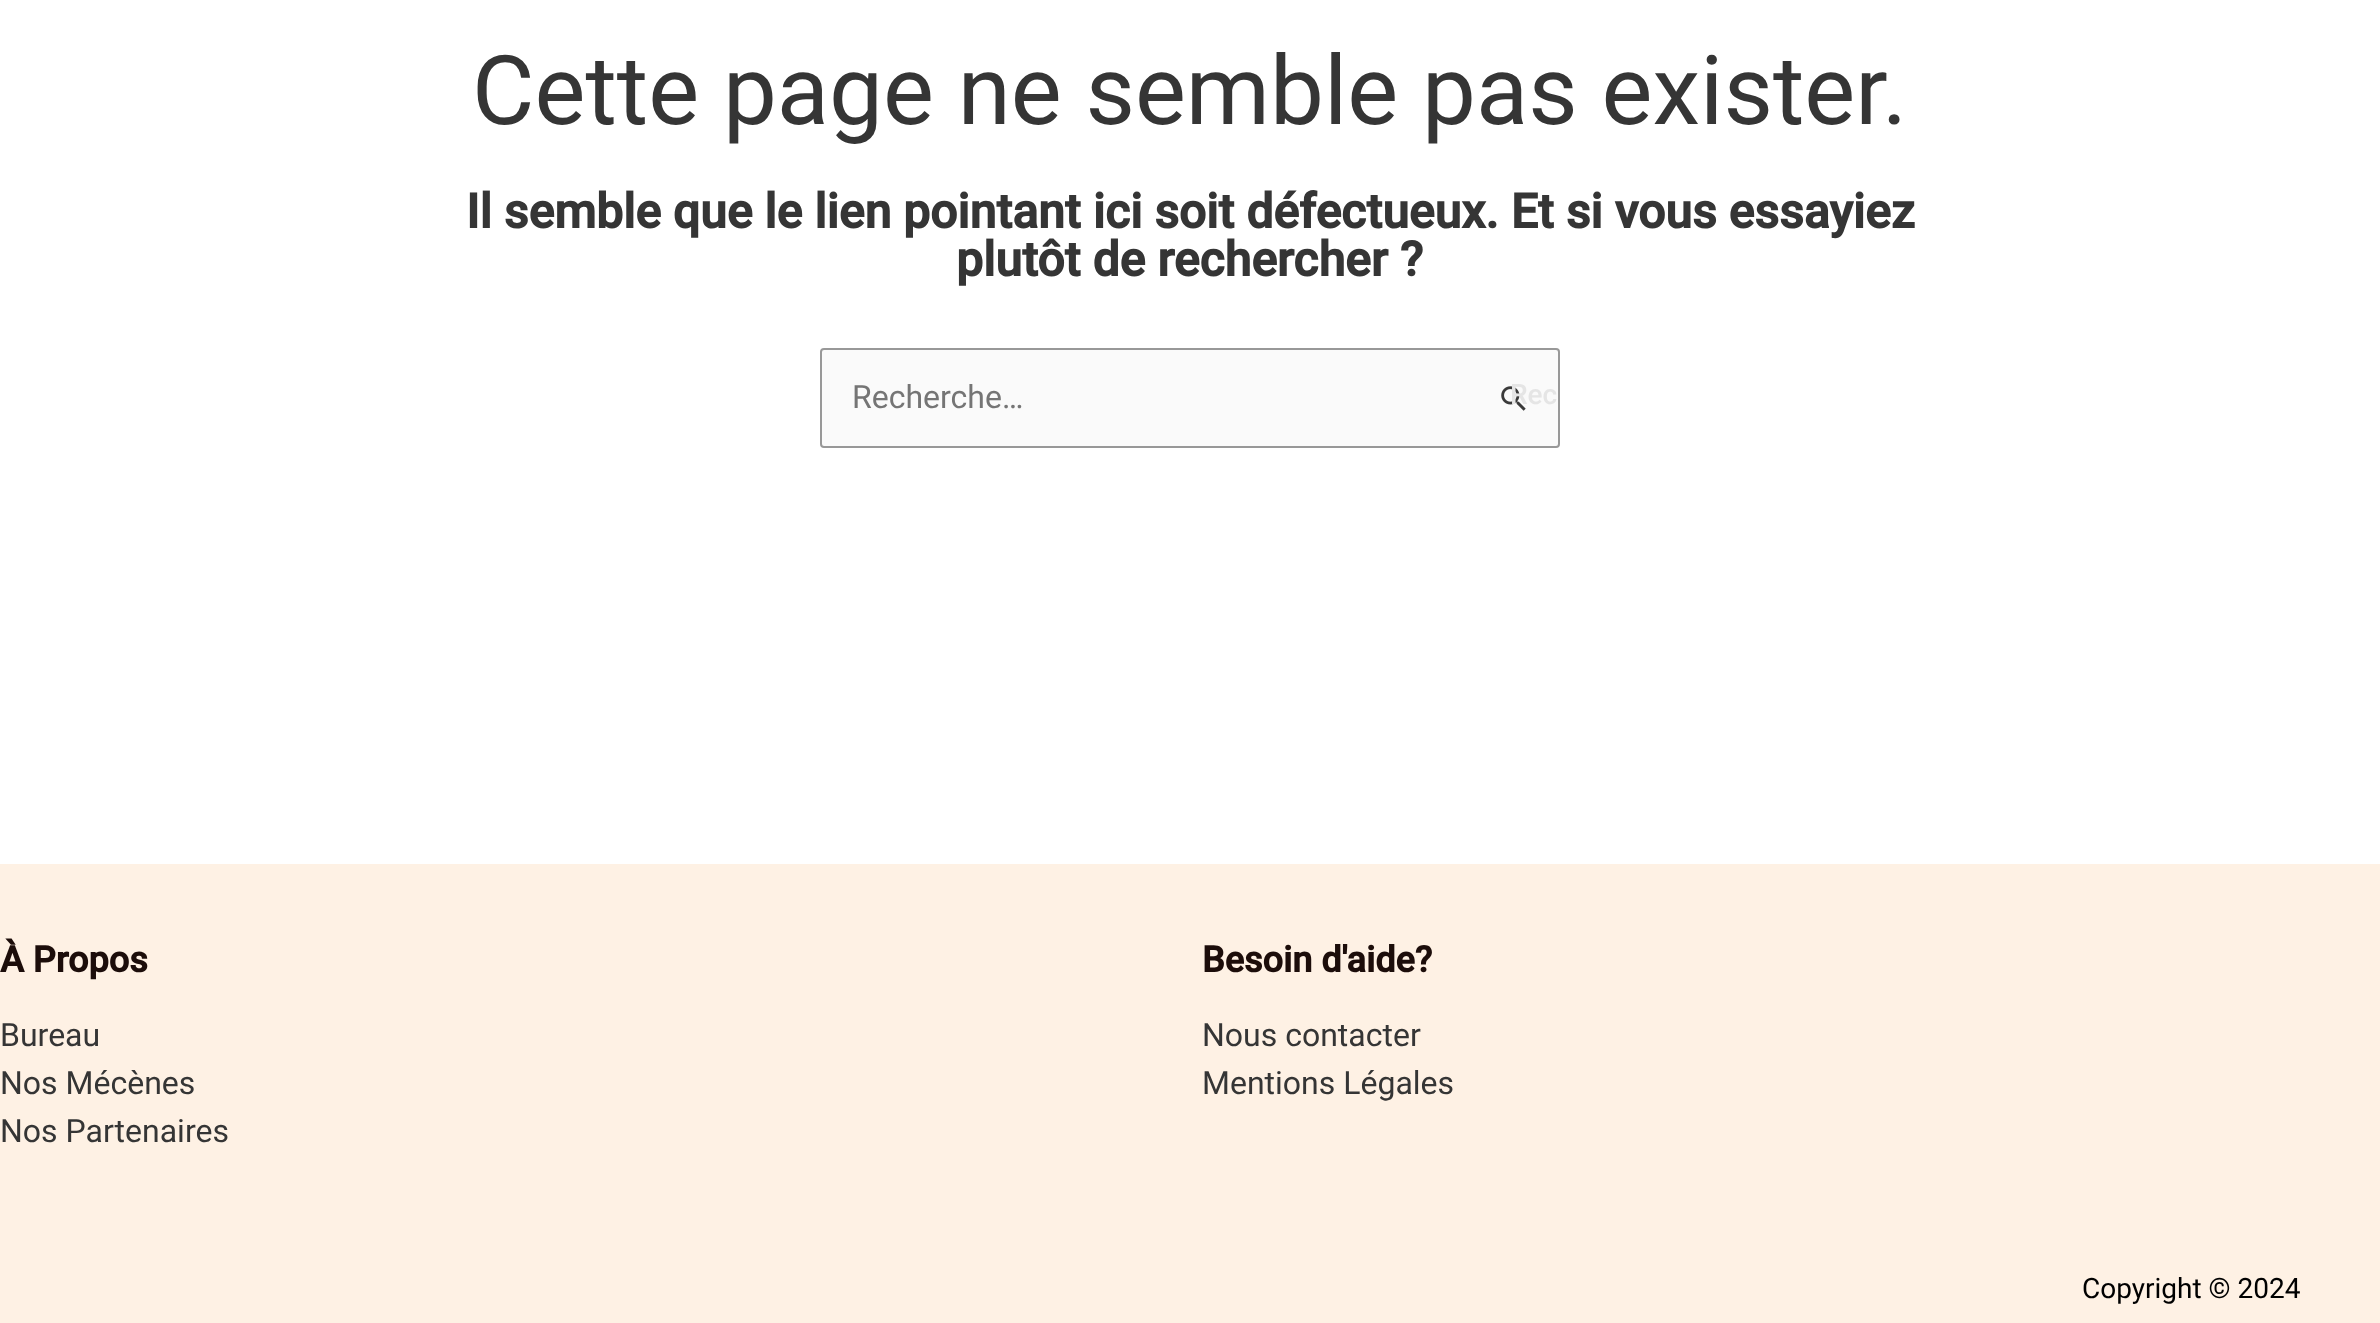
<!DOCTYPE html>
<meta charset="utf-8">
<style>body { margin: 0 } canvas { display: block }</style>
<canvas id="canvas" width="2380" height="1323"></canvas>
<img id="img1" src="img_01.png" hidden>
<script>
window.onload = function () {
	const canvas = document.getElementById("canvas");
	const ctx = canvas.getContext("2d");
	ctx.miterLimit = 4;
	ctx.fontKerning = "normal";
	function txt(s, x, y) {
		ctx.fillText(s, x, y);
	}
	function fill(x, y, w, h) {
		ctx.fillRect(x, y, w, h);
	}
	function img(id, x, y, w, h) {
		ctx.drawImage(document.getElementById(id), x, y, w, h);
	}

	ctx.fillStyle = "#FFFFFF";
	fill(0, 0, 2380, 1323);
	ctx.fillStyle = "#FAFAFA";
	ctx.beginPath();
	ctx.roundRect(821, 349, 738, 98, 3);
	ctx.fill();
	ctx.strokeStyle = "#989898";
	ctx.lineWidth = 2;
	ctx.stroke();
	img("img1", 1501, 386, 25, 25);
	ctx.fillStyle = "#FEF1E4";
	fill(0, 864, 2380, 459);
	ctx.font = "96px Roboto";
	ctx.fillStyle = "#353535";
	txt("Cette page ne semble pas exister.", 472, 124);
	ctx.font = "bold 48px Roboto";
	txt("Il semble que le lien pointant ici soit défectueux. Et si vous essayiez", 466, 228);
	txt("plutôt de rechercher ?", 956, 276);
	ctx.font = "32px Roboto";
	ctx.fillStyle = "#757575";
	txt("Recherche…", 852, 408);
	ctx.font = "500 28px Roboto";
	ctx.fillStyle = "#E5E5E5";
	txt("Rec", 1510, 404);
	ctx.font = "bold 36px Roboto";
	ctx.fillStyle = "#1C0D0A";
	txt("À Propos", 0, 972);
	ctx.font = "32px Roboto";
	ctx.fillStyle = "#353535";
	txt("Bureau", 0, 1046);
	txt("Nos Mécènes", 0, 1094);
	txt("Nos Partenaires", 0, 1142);
	ctx.font = "bold 36px Roboto";
	ctx.fillStyle = "#1C0D0A";
	txt("Besoin d'aide?", 1202, 972);
	ctx.font = "32px Roboto";
	ctx.fillStyle = "#353535";
	txt("Nous contacter", 1202, 1046);
	txt("Mentions Légales", 1202, 1094);
	ctx.font = "28px Roboto";
	ctx.fillStyle = "#000000";
	txt("Copyright © 2024", 2082, 1298);
};
</script>
